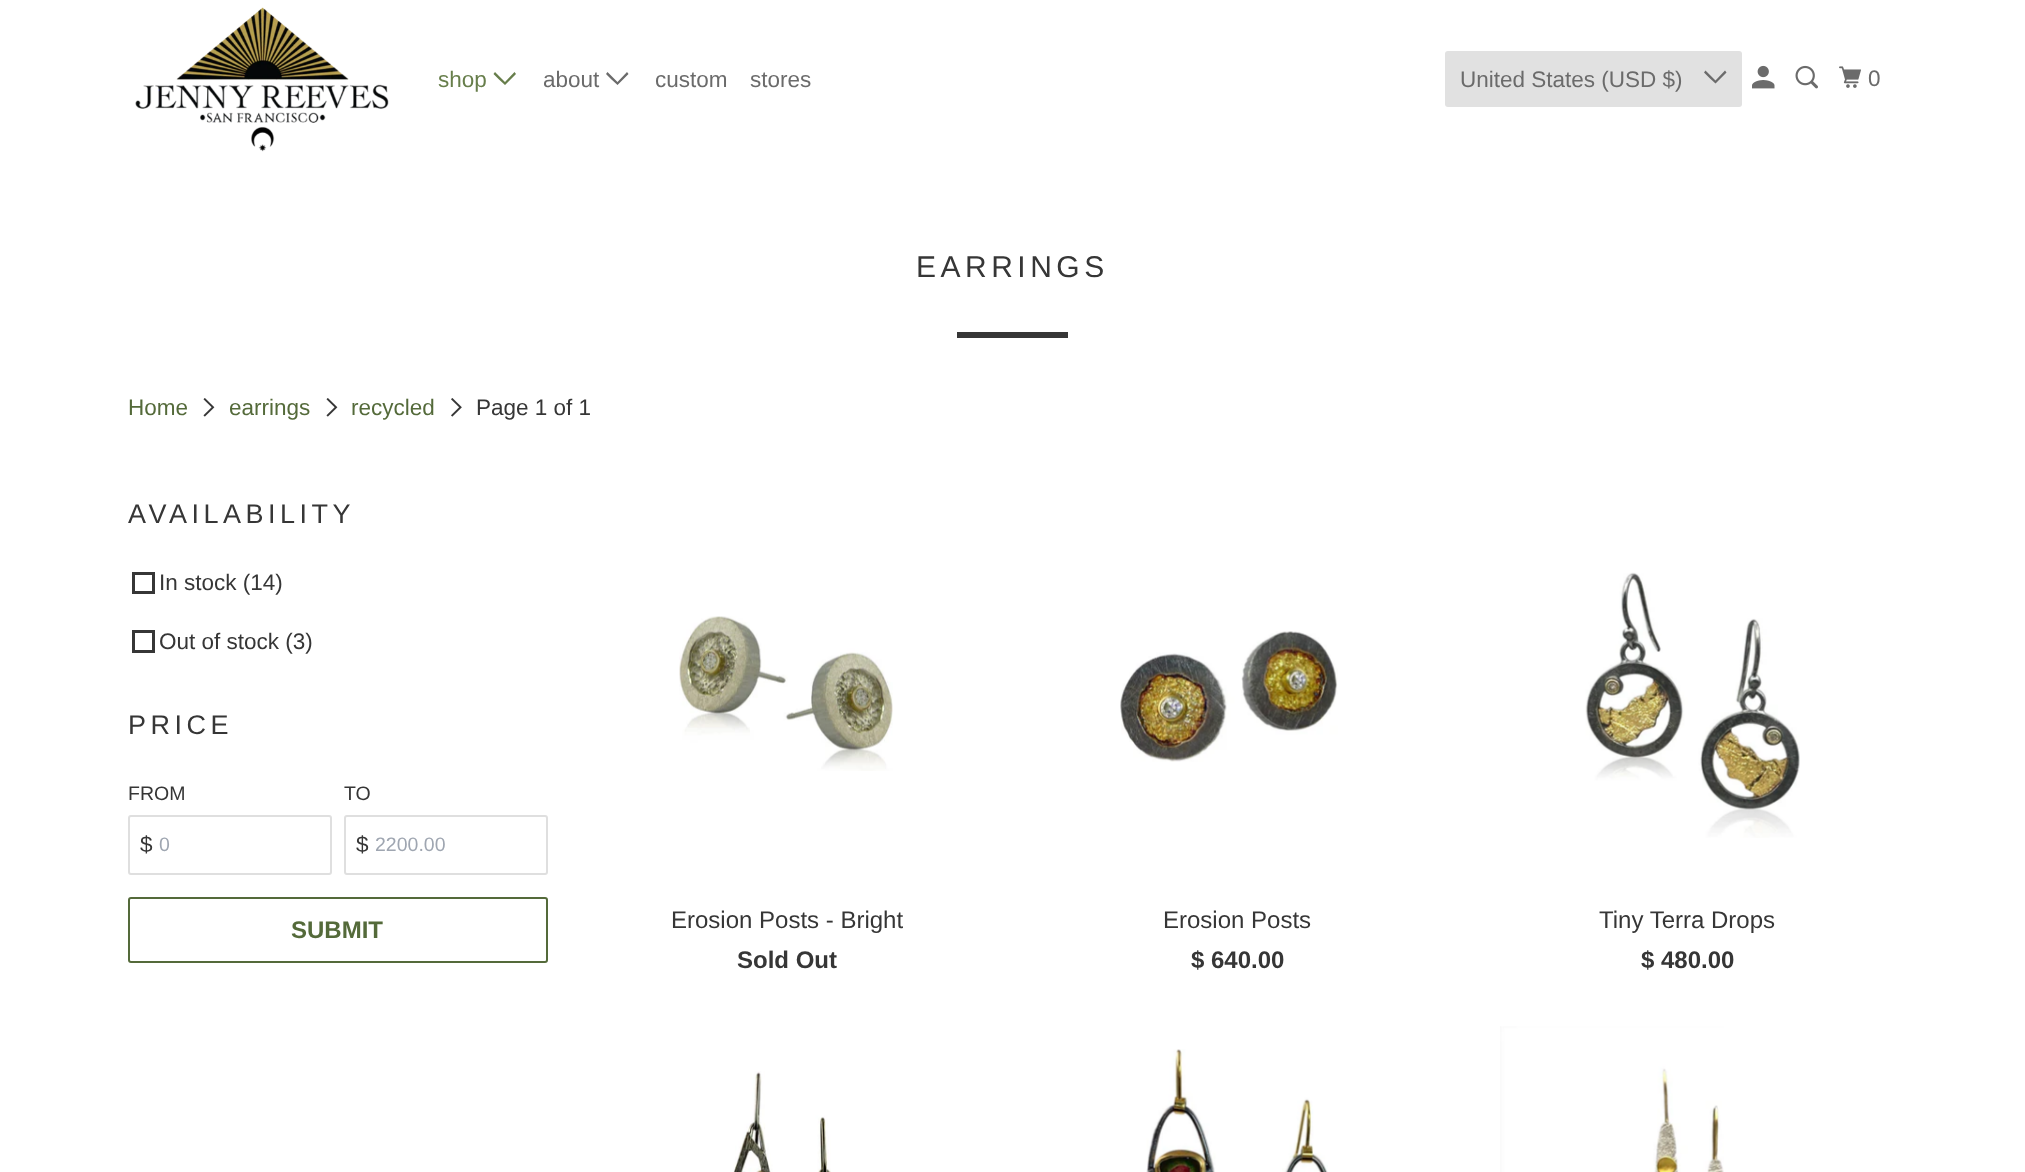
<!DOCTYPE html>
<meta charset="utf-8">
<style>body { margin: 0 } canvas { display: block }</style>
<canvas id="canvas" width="2025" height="1172"></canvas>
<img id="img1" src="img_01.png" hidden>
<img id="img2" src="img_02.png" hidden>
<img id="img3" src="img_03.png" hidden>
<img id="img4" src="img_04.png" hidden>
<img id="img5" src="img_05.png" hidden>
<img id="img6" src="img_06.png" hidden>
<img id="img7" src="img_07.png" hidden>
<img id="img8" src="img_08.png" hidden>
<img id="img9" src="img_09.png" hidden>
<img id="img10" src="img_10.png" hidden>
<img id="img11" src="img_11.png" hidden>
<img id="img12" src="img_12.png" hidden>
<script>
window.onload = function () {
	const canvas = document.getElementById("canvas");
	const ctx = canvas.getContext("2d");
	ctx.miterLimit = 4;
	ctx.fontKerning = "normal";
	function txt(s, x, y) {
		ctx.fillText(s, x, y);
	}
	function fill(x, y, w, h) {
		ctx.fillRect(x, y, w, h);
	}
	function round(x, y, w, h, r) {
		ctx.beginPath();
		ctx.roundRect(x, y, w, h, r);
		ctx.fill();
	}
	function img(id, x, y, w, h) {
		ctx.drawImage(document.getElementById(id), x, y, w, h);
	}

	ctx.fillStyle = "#FFFFFF";
	fill(0, 0, 2025, 1172);
	img("img1", 135, 7, 254, 145);
	ctx.fillStyle = "#677E4B";
	ctx.beginPath();
	ctx.moveTo(499, 79.5);
	ctx.lineTo(493.5, 74);
	ctx.lineTo(495, 72);
	ctx.lineTo(505, 82);
	ctx.lineTo(514.5, 72);
	ctx.lineTo(516, 74);
	ctx.lineTo(505, 85);
	ctx.closePath();
	ctx.fill();
	ctx.fillStyle = "#6B6B6B";
	ctx.beginPath();
	ctx.moveTo(611.5, 79.5);
	ctx.lineTo(606, 74);
	ctx.lineTo(607.5, 72);
	ctx.lineTo(617.5, 82);
	ctx.lineTo(627, 72);
	ctx.lineTo(628.5, 74);
	ctx.lineTo(617.5, 85);
	ctx.closePath();
	ctx.fill();
	ctx.fillStyle = "#E1E1E1";
	round(1445, 51, 297, 56, 3);
	ctx.fillStyle = "#6B6B6B";
	ctx.beginPath();
	ctx.moveTo(1709.5, 78);
	ctx.lineTo(1704, 72.5);
	ctx.lineTo(1705.5, 70.5);
	ctx.lineTo(1715.5, 80.5);
	ctx.lineTo(1725, 70.5);
	ctx.lineTo(1726.5, 72.5);
	ctx.lineTo(1715.5, 83.5);
	ctx.closePath();
	ctx.fill();
	img("img2", 1752, 65, 23, 24);
	img("img3", 1795, 65, 23, 24);
	img("img4", 1839, 66, 22, 22);
	ctx.fillStyle = "#363636";
	fill(957, 332, 111, 6);
	img("img5", 203, 398, 12, 19);
	img("img5", 326, 398, 12, 19);
	img("img6", 451, 398, 11, 19);
	ctx.strokeStyle = "#363636";
	ctx.lineWidth = 3;
	ctx.strokeRect(133.5, 573.5, 20, 19);
	ctx.strokeRect(133.5, 631.5, 20, 20);
	ctx.beginPath();
	ctx.roundRect(129, 816, 202, 58, 2);
	ctx.strokeStyle = "#DFDFDF";
	ctx.lineWidth = 2;
	ctx.stroke();
	ctx.beginPath();
	ctx.roundRect(345, 816, 202, 58, 2);
	ctx.stroke();
	ctx.beginPath();
	ctx.roundRect(129, 898, 418, 64, 2);
	ctx.strokeStyle = "#546A3A";
	ctx.stroke();
	img("img7", 679, 616, 214, 155);
	img("img8", 1120, 631, 218, 131);
	img("img9", 1585, 572, 215, 266);
	img("img10", 733, 1071, 98, 101);
	img("img11", 1146, 1049, 182, 123);
	img("img12", 1500, 1026, 224, 146);
	ctx.font = "22.5px Liberation Sans";
	ctx.fillStyle = "#677E4B";
	txt("shop", 438, 87);
	ctx.fillStyle = "#6B6B6B";
	txt("about", 543, 87);
	txt("custom", 655, 87);
	txt("stores", 750, 87);
	txt("United States (USD $)", 1460, 87);
	txt("0", 1868, 86);
	ctx.letterSpacing = "4.5px";
	ctx.font = "30px Liberation Sans";
	ctx.fillStyle = "#363636";
	txt("EARRINGS", 916, 277);
	ctx.letterSpacing = "0px";
	ctx.font = "22.5px Liberation Sans";
	ctx.fillStyle = "#546A3A";
	txt("Home", 128, 415);
	txt("earrings", 229, 415);
	txt("recycled", 351, 415);
	ctx.fillStyle = "#363636";
	txt("Page 1 of 1", 476, 415);
	ctx.letterSpacing = "4.5px";
	ctx.font = "27px Liberation Sans";
	txt("AVAILABILITY", 128, 523);
	ctx.letterSpacing = "0px";
	ctx.font = "22.5px Liberation Sans";
	txt("In stock (14)", 159, 590);
	txt("Out of stock (3)", 159, 649);
	ctx.letterSpacing = "4.5px";
	ctx.font = "27px Liberation Sans";
	txt("PRICE", 128, 734);
	ctx.letterSpacing = "0px";
	ctx.font = "19.5px Liberation Sans";
	txt("FROM", 128, 800);
	ctx.font = "22.5px Liberation Sans";
	txt("$", 140, 852);
	ctx.font = "19.5px Liberation Sans";
	ctx.fillStyle = "#9FA6B1";
	txt("0", 159, 851);
	ctx.fillStyle = "#363636";
	txt("TO", 344, 800);
	ctx.font = "22.5px Liberation Sans";
	txt("$", 356, 852);
	ctx.font = "19.5px Liberation Sans";
	ctx.fillStyle = "#9FA6B1";
	txt("2200.00", 375, 851);
	ctx.font = "bold 24px Liberation Sans";
	ctx.fillStyle = "#546A3A";
	txt("SUBMIT", 291, 938);
	ctx.font = "24px Liberation Sans";
	ctx.fillStyle = "#363636";
	txt("Erosion Posts - Bright", 671, 928);
	ctx.font = "bold 24px Liberation Sans";
	txt("Sold Out", 737, 968);
	ctx.font = "24px Liberation Sans";
	txt("Erosion Posts", 1163, 928);
	ctx.font = "bold 24px Liberation Sans";
	txt("$ 640.00", 1191, 968);
	ctx.font = "24px Liberation Sans";
	txt("Tiny Terra Drops", 1599, 928);
	ctx.font = "bold 24px Liberation Sans";
	txt("$ 480.00", 1641, 968);
};
</script>
